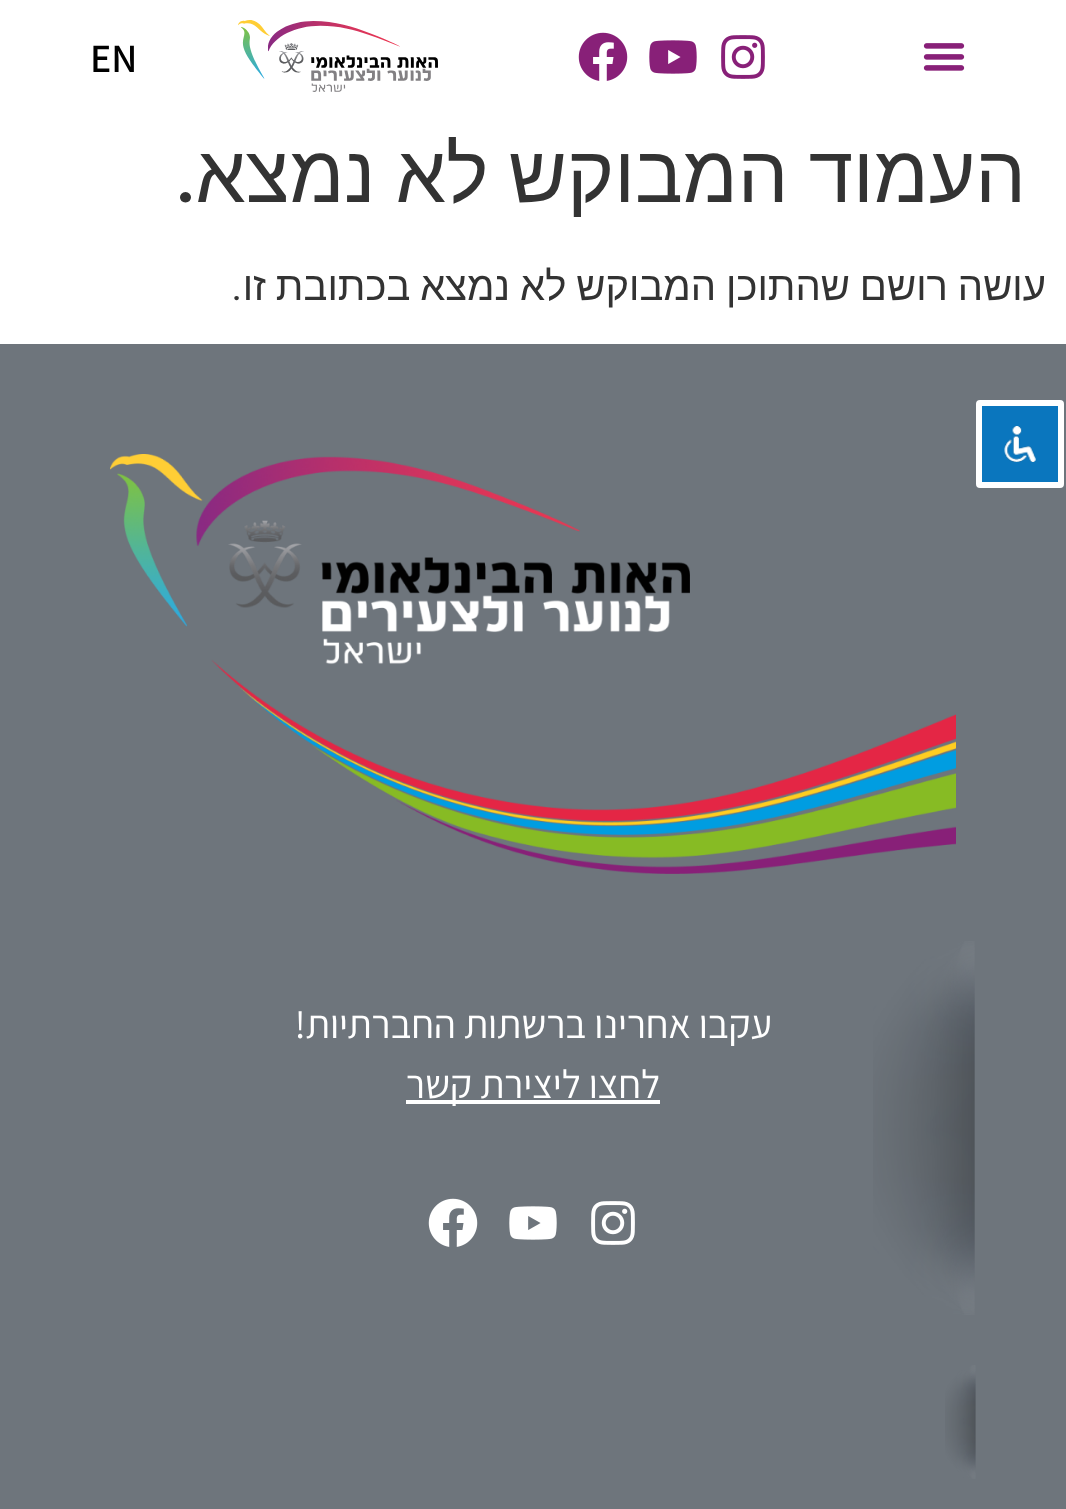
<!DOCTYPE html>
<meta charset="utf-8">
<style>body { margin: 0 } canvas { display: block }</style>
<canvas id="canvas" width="1066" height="1509"></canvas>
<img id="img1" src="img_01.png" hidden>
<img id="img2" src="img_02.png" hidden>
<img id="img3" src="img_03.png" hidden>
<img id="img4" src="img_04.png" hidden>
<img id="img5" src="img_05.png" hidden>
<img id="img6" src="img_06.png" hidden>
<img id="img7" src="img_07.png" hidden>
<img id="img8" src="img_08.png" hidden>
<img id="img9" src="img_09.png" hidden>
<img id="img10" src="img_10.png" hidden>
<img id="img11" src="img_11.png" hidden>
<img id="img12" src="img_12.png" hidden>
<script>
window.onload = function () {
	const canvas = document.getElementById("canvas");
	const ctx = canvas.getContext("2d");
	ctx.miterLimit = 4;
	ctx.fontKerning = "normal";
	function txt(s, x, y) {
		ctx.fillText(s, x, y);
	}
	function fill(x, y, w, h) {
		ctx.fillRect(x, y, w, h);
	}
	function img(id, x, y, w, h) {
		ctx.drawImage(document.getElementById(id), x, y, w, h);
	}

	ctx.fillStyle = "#FFFFFF";
	fill(0, 0, 1066, 1509);
	img("img1", 923, 43, 42, 28);
	img("img2", 721, 35, 44, 44);
	img("img3", 649, 40, 48, 34);
	img("img4", 578, 32, 50, 49);
	img("img5", 238, 20, 200, 72);
	ctx.fillStyle = "#6E757C";
	fill(0, 344, 1066, 1165);
	img("img6", 110, 454, 846, 420);
	img("img7", 873, 941, 102, 374);
	ctx.fillStyle = "#FFFFFF";
	fill(406, 1100, 254, 4);
	img("img8", 591, 1201, 44, 44);
	img("img9", 509, 1206, 48, 34);
	img("img10", 428, 1198, 50, 49);
	img("img11", 945, 1365, 31, 114);
	ctx.fillStyle = "#0A76BE";
	ctx.beginPath();
	ctx.roundRect(979, 403, 82, 82, 1);
	ctx.fill();
	ctx.strokeStyle = "#FFFFFF";
	ctx.lineWidth = 6;
	ctx.stroke();
	img("img12", 1004, 426, 32, 36);
	ctx.font = "600 40px Assistant";
	ctx.fillStyle = "#000000";
	txt("EN", 90, 72);
	ctx.wordSpacing = "-2px";
	ctx.direction = "rtl";
	ctx.font = "80px Liberation Sans";
	ctx.fillStyle = "#333333";
	txt("העמוד המבוקש לא נמצא", 1026, 202);
	ctx.wordSpacing = "0px";
	ctx.font = "500 80px Roboto";
	txt(".", 197, 202);
	ctx.wordSpacing = "-1.25px";
	ctx.font = "40px Liberation Sans";
	txt("עושה רושם שהתוכן המבוקש לא נמצא בכתובת זו", 1046, 300);
	ctx.wordSpacing = "0px";
	ctx.font = "40px Roboto";
	txt(".", 242, 300);
	ctx.font = "40px Assistant";
	ctx.fillStyle = "#FFFFFF";
	txt("עקבו אחרינו ברשתות החברתיות!", 772, 1038);
	txt("לחצו ליצירת קשר", 660, 1098);
};
</script>
